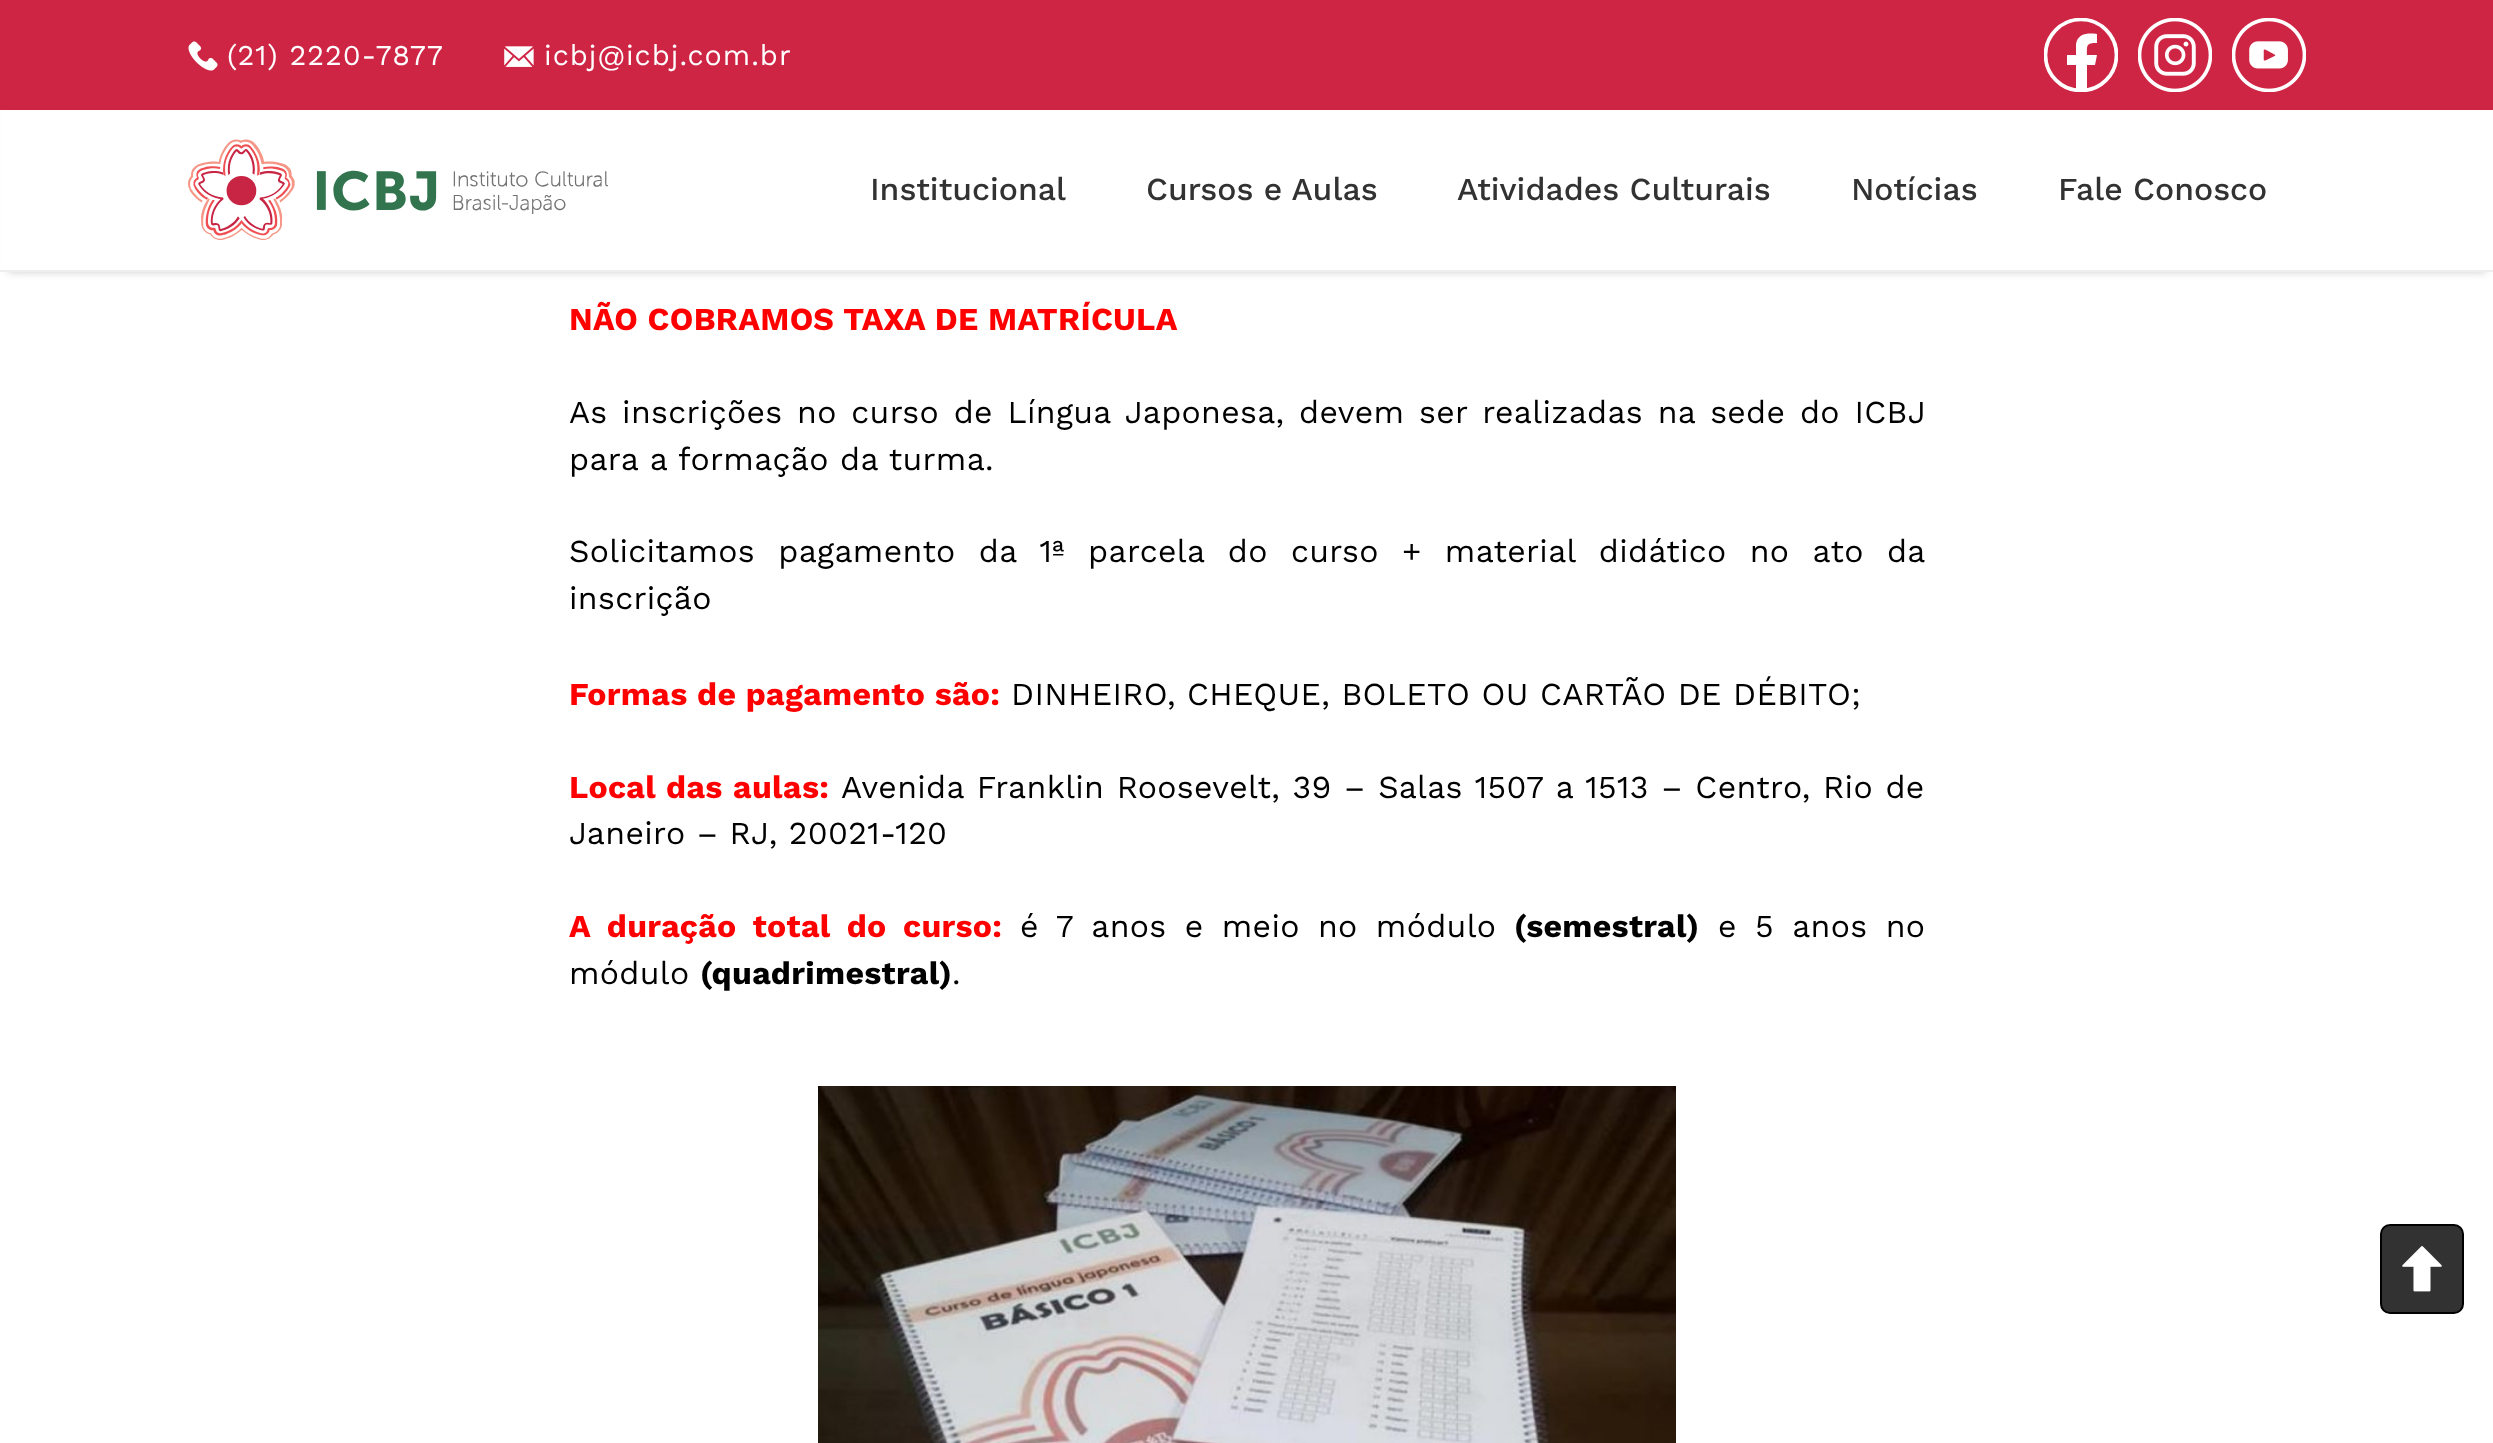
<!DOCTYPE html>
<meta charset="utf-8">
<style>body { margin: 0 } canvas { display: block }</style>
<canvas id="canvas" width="2493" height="1443"></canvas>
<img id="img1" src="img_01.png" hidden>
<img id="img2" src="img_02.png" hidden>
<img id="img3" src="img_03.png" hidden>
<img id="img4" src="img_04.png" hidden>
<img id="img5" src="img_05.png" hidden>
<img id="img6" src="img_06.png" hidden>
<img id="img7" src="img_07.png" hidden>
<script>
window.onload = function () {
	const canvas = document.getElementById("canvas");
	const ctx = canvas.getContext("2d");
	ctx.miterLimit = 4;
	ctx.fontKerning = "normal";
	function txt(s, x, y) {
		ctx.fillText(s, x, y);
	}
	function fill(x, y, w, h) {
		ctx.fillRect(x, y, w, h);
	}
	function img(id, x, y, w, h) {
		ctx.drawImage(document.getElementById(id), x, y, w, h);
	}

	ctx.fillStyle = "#FFFFFF";
	fill(0, 0, 2493, 1443);
	ctx.fillStyle = "#CCCCCC";
	ctx.filter = "blur(4px)";
	ctx.beginPath();
	ctx.rect(8, 16, 2478, 256);
	ctx.fill();
	ctx.filter = "none";
	ctx.fillStyle = "#FFFFFF";
	fill(1, 110, 2492, 160);
	ctx.fillStyle = "#EEEEEE";
	fill(0, 270, 2493, 2);
	ctx.fillStyle = "#CE2545";
	fill(0, 0, 2493, 110);
	img("img1", 188, 41, 30, 30);
	img("img2", 504, 46, 30, 21);
	ctx.fillStyle = "#FFFFFF";
	ctx.beginPath();
	ctx.moveTo(2095, 65);
	ctx.lineTo(2097, 55);
	ctx.lineTo(2087, 55);
	ctx.bezierCurveTo(2087, 45, 2086, 43, 2097, 43);
	ctx.lineTo(2097, 34);
	ctx.bezierCurveTo(2088, 33, 2078, 33, 2076, 44);
	ctx.lineTo(2076, 55);
	ctx.lineTo(2067, 55);
	ctx.lineTo(2067, 65);
	ctx.lineTo(2076, 65);
	ctx.lineTo(2076, 90);
	ctx.bezierCurveTo(2079, 90, 2083, 90, 2087, 90);
	ctx.lineTo(2087, 65);
	ctx.closePath();
	ctx.fill();
	ctx.save();
	ctx.beginPath();
	ctx.rect(2044, 18, 74, 74);
	ctx.clip();
	ctx.beginPath();
	ctx.arc(2081, 55, 35.5, 0, Math.PI * 2);
	ctx.strokeStyle = "#FFFFFF";
	ctx.lineWidth = 3.7;
	ctx.stroke();
	ctx.restore();
	img("img3", 2138, 18, 74, 74);
	img("img4", 2232, 18, 74, 74);
	img("img5", 188, 139, 420, 101);
	img("img6", 818, 1086, 858, 357);
	ctx.fillStyle = "#323232";
	ctx.beginPath();
	ctx.roundRect(2381, 1225, 82, 88, 9);
	ctx.fill();
	ctx.strokeStyle = "#000000";
	ctx.lineWidth = 2;
	ctx.stroke();
	img("img7", 2402, 1246, 40, 46);
	ctx.letterSpacing = "1px";
	ctx.font = "28.75px Work Sans";
	ctx.fillStyle = "#FFFFFF";
	txt("(21) 2220-7877", 227, 65);
	txt("icbj@icbj.com.br", 544, 65);
	ctx.letterSpacing = "0px";
	ctx.font = "500 32px Work Sans";
	ctx.fillStyle = "#323232";
	txt("Institucional", 870, 200);
	txt("Cursos e Aulas", 1146, 200);
	txt("Atividades Culturais", 1457, 200);
	txt("Notícias", 1851, 200);
	txt("Fale Conosco", 2058, 200);
	ctx.letterSpacing = "0.32px";
	ctx.font = "bold 32px Work Sans";
	ctx.fillStyle = "#FF0000";
	txt("NÃO COBRAMOS TAXA DE MATRÍCULA", 569, 330);
	ctx.wordSpacing = "3.4px";
	ctx.font = "32px Work Sans";
	ctx.fillStyle = "#000000";
	txt("As inscrições no curso de Língua Japonesa, devem ser realizadas na sede do ICBJ", 569, 423);
	ctx.wordSpacing = "0px";
	txt("para a formação da turma.", 569, 470);
	ctx.wordSpacing = "12px";
	txt("Solicitamos pagamento da 1ª parcela do curso + material didático no ato da", 569, 562);
	ctx.wordSpacing = "0px";
	txt("inscrição", 569, 609);
	ctx.font = "bold 32px Work Sans";
	ctx.fillStyle = "#FF0000";
	txt("Formas de pagamento são:", 569, 705);
	ctx.font = "32px Work Sans";
	ctx.fillStyle = "#000000";
	txt("DINHEIRO, CHEQUE, BOLETO OU CARTÃO DE DÉBITO;", 1011, 705);
	ctx.wordSpacing = "1px";
	ctx.font = "bold 32px Work Sans";
	ctx.fillStyle = "#FF0000";
	txt("Local das aulas:", 569, 798);
	ctx.wordSpacing = "1.25px";
	ctx.font = "32px Work Sans";
	ctx.fillStyle = "#000000";
	txt("Avenida Franklin Roosevelt, 39 – Salas 1507 a 1513 – Centro, Rio de", 841, 798);
	ctx.wordSpacing = "0px";
	txt("Janeiro – RJ, 20021-120", 569, 844);
	ctx.wordSpacing = "7px";
	ctx.font = "bold 32px Work Sans";
	ctx.fillStyle = "#FF0000";
	txt("A duração total do curso:", 569, 937);
	ctx.font = "32px Work Sans";
	ctx.fillStyle = "#000000";
	txt("é 7 anos e meio no módulo", 1020, 937);
	ctx.wordSpacing = "0px";
	ctx.font = "bold 32px Work Sans";
	txt("(semestral)", 1514, 937);
	ctx.wordSpacing = "7px";
	ctx.font = "32px Work Sans";
	txt("e 5 anos no", 1718, 937);
	ctx.wordSpacing = "0px";
	txt("módulo", 569, 984);
	ctx.font = "bold 32px Work Sans";
	txt("(quadrimestral)", 700, 984);
	ctx.font = "32px Work Sans";
	txt(".", 952, 984);
};
</script>
